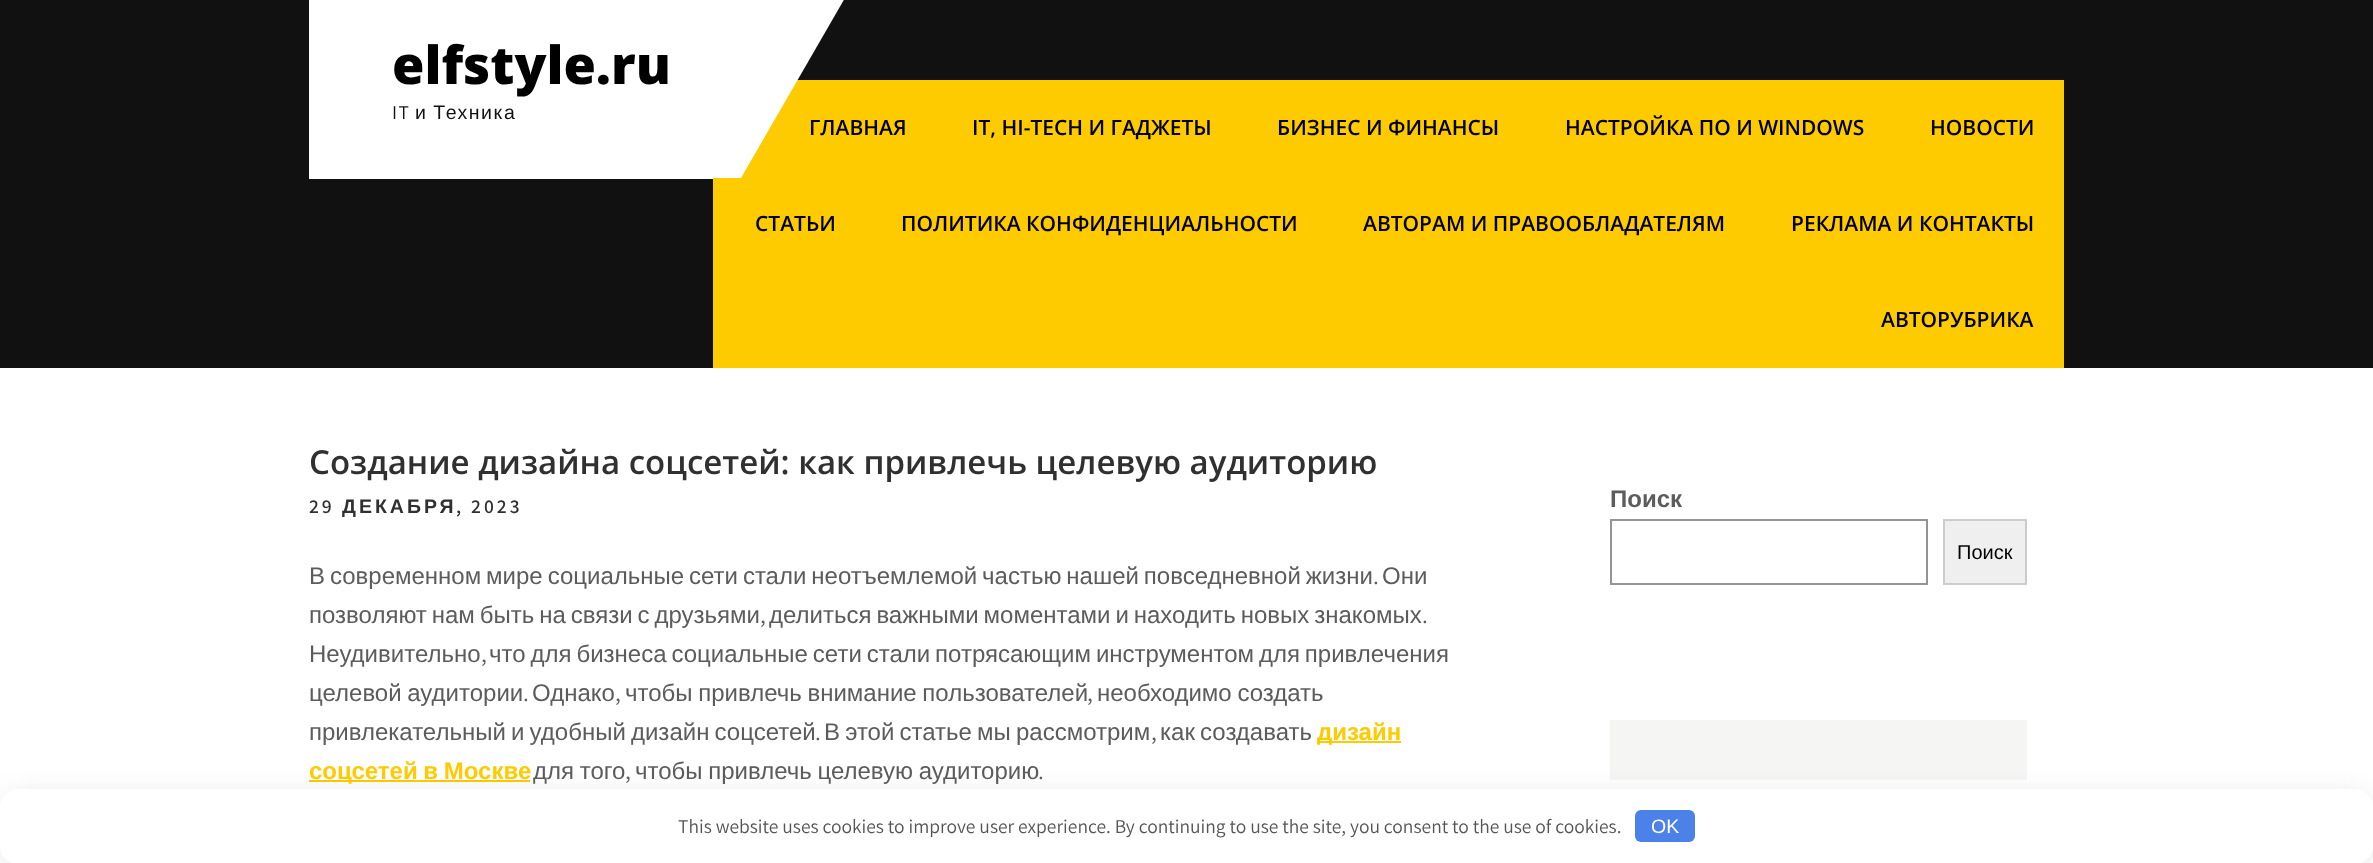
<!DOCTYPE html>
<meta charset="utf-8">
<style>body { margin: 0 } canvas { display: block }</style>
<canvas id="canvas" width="2373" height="863"></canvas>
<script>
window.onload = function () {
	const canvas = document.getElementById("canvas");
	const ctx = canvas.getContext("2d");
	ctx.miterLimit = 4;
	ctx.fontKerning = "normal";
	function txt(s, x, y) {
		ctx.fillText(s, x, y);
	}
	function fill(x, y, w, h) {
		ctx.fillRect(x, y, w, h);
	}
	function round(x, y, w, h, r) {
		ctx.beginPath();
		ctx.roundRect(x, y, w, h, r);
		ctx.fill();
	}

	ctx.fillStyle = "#FFFFFF";
	fill(0, 0, 2373, 863);
	ctx.fillStyle = "#111111";
	fill(0, 0, 2373, 368);
	ctx.fillStyle = "#FFFFFF";
	fill(309, 0, 404, 179);
	ctx.fillStyle = "#FECA00";
	fill(713, 80, 1351, 288);
	ctx.fillStyle = "#FFFFFF";
	ctx.beginPath();
	ctx.moveTo(699, -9);
	ctx.lineTo(849, -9);
	ctx.lineTo(741, 178);
	ctx.lineTo(591, 178);
	ctx.closePath();
	ctx.fill();
	ctx.fillStyle = "#FECA00";
	fill(1317, 741, 84, 2);
	fill(309, 780, 221, 2);
	ctx.strokeStyle = "#949494";
	ctx.lineWidth = 2;
	ctx.strokeRect(1611, 520, 316, 64);
	ctx.fillStyle = "#EFEFEF";
	ctx.beginPath();
	ctx.rect(1944, 520, 82, 64);
	ctx.fill();
	ctx.strokeStyle = "#CCCCCC";
	ctx.stroke();
	ctx.fillStyle = "#F5F5F4";
	fill(1610, 720, 417, 60);
	ctx.fillStyle = "rgba(41, 44, 56, 0.2)";
	ctx.filter = "blur(15px)";
	ctx.beginPath();
	ctx.roundRect(8, 801, 2358, 60, 11);
	ctx.fill();
	ctx.filter = "none";
	ctx.fillStyle = "#FFFFFF";
	round(0, 789, 2373, 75, 18);
	ctx.fillStyle = "#4B81E8";
	round(1635, 810, 60, 32, 6);
	ctx.font = "800 52.5px Open Sans";
	ctx.fillStyle = "#000000";
	txt("elfstyle.ru", 392, 84);
	ctx.letterSpacing = "1.5px";
	ctx.font = "19.5px Assistant";
	ctx.fillStyle = "#111111";
	txt("IT", 392, 119);
	ctx.wordSpacing = "-1px";
	ctx.font = "19.5px Liberation Sans";
	txt("и Техника", 415, 119);
	ctx.letterSpacing = "0px";
	ctx.wordSpacing = "0px";
	ctx.font = "600 21px Open Sans";
	ctx.fillStyle = "#000000";
	txt("ГЛАВНАЯ", 809, 135);
	txt("IT, HI-TECH И ГАДЖЕТЫ", 972, 135);
	txt("БИЗНЕС И ФИНАНСЫ", 1277, 135);
	txt("НАСТРОЙКА ПО И WINDOWS", 1565, 135);
	txt("НОВОСТИ", 1930, 135);
	txt("СТАТЬИ", 755, 231);
	txt("ПОЛИТИКА КОНФИДЕНЦИАЛЬНОСТИ", 901, 231);
	txt("АВТОРАМ И ПРАВООБЛАДАТЕЛЯМ", 1363, 231);
	txt("РЕКЛАМА И КОНТАКТЫ", 1791, 231);
	txt("АВТОРУБРИКА", 1881, 327);
	ctx.font = "600 33px Open Sans";
	ctx.fillStyle = "#303030";
	txt("Создание дизайна соцсетей: как привлечь целевую аудиторию", 309, 474);
	ctx.letterSpacing = "3px";
	ctx.font = "600 19.5px Assistant";
	txt("29", 309, 513);
	ctx.font = "bold 19.5px Liberation Sans";
	txt("ДЕКАБРЯ", 342, 513);
	ctx.font = "600 19.5px Assistant";
	txt(", 2023", 456, 513);
	ctx.letterSpacing = "0px";
	ctx.wordSpacing = "-1.75px";
	ctx.font = "24px Liberation Sans";
	ctx.fillStyle = "#5C5C5C";
	txt("В современном мире социальные сети стали неотъемлемой частью нашей повседневной жизни", 309, 584);
	ctx.wordSpacing = "0px";
	ctx.font = "24px Assistant";
	txt(".", 1373, 584);
	ctx.font = "24px Liberation Sans";
	txt("Они", 1382, 584);
	ctx.wordSpacing = "-1.75px";
	txt("позволяют нам быть на связи с друзьями", 309, 623);
	ctx.wordSpacing = "0px";
	ctx.font = "24px Assistant";
	txt(",", 760, 623);
	ctx.wordSpacing = "-1.75px";
	ctx.font = "24px Liberation Sans";
	txt("делиться важными моментами и находить новых знакомых", 769, 623);
	ctx.wordSpacing = "0px";
	ctx.font = "24px Assistant";
	txt(".", 1422, 623);
	ctx.font = "24px Liberation Sans";
	txt("Неудивительно", 309, 662);
	ctx.font = "24px Assistant";
	txt(",", 481, 662);
	ctx.wordSpacing = "-1.75px";
	ctx.font = "24px Liberation Sans";
	txt("что для бизнеса социальные сети стали потрясающим инструментом для привлечения", 489, 662);
	ctx.wordSpacing = "-1px";
	txt("целевой аудитории", 309, 701);
	ctx.wordSpacing = "0px";
	ctx.font = "24px Assistant";
	txt(".", 523, 701);
	ctx.font = "24px Liberation Sans";
	txt("Однако", 532, 701);
	ctx.font = "24px Assistant";
	txt(",", 615, 701);
	ctx.wordSpacing = "-1px";
	ctx.font = "24px Liberation Sans";
	txt("чтобы привлечь внимание пользователей", 625, 701);
	ctx.wordSpacing = "0px";
	ctx.font = "24px Assistant";
	txt(",", 1087, 701);
	ctx.wordSpacing = "-1px";
	ctx.font = "24px Liberation Sans";
	txt("необходимо создать", 1097, 701);
	ctx.wordSpacing = "-1.5px";
	txt("привлекательный и удобный дизайн соцсетей", 309, 740);
	ctx.wordSpacing = "0px";
	ctx.font = "24px Assistant";
	txt(".", 815, 740);
	ctx.wordSpacing = "-1.5px";
	ctx.font = "24px Liberation Sans";
	txt("В этой статье мы рассмотрим", 824, 740);
	ctx.wordSpacing = "0px";
	ctx.font = "24px Assistant";
	txt(",", 1151, 740);
	ctx.wordSpacing = "-1.5px";
	ctx.font = "24px Liberation Sans";
	txt("как создавать", 1160, 740);
	ctx.wordSpacing = "0px";
	ctx.font = "bold 24px Liberation Sans";
	ctx.fillStyle = "#FECA00";
	txt("дизайн", 1317, 740);
	ctx.wordSpacing = "-1px";
	txt("соцсетей в Москве", 309, 779);
	ctx.font = "24px Liberation Sans";
	ctx.fillStyle = "#5C5C5C";
	txt("для того", 533, 779);
	ctx.wordSpacing = "0px";
	ctx.font = "24px Assistant";
	txt(",", 625, 779);
	ctx.wordSpacing = "-1px";
	ctx.font = "24px Liberation Sans";
	txt("чтобы привлечь целевую аудиторию", 635, 779);
	ctx.wordSpacing = "0px";
	ctx.font = "24px Assistant";
	txt(".", 1038, 779);
	ctx.font = "bold 24px Liberation Sans";
	txt("Поиск", 1610, 507);
	ctx.font = "20px Liberation Sans";
	ctx.fillStyle = "#000000";
	txt("Поиск", 1957, 559);
	ctx.font = "19.5px Assistant";
	ctx.fillStyle = "#555555";
	txt("This website uses cookies to improve user experience. By continuing to use the site, you consent to the use of cookies.", 678, 833);
	ctx.font = "19.5px Liberation Sans";
	ctx.fillStyle = "#FFFFFF";
	txt("OK", 1651, 833);
};
</script>
